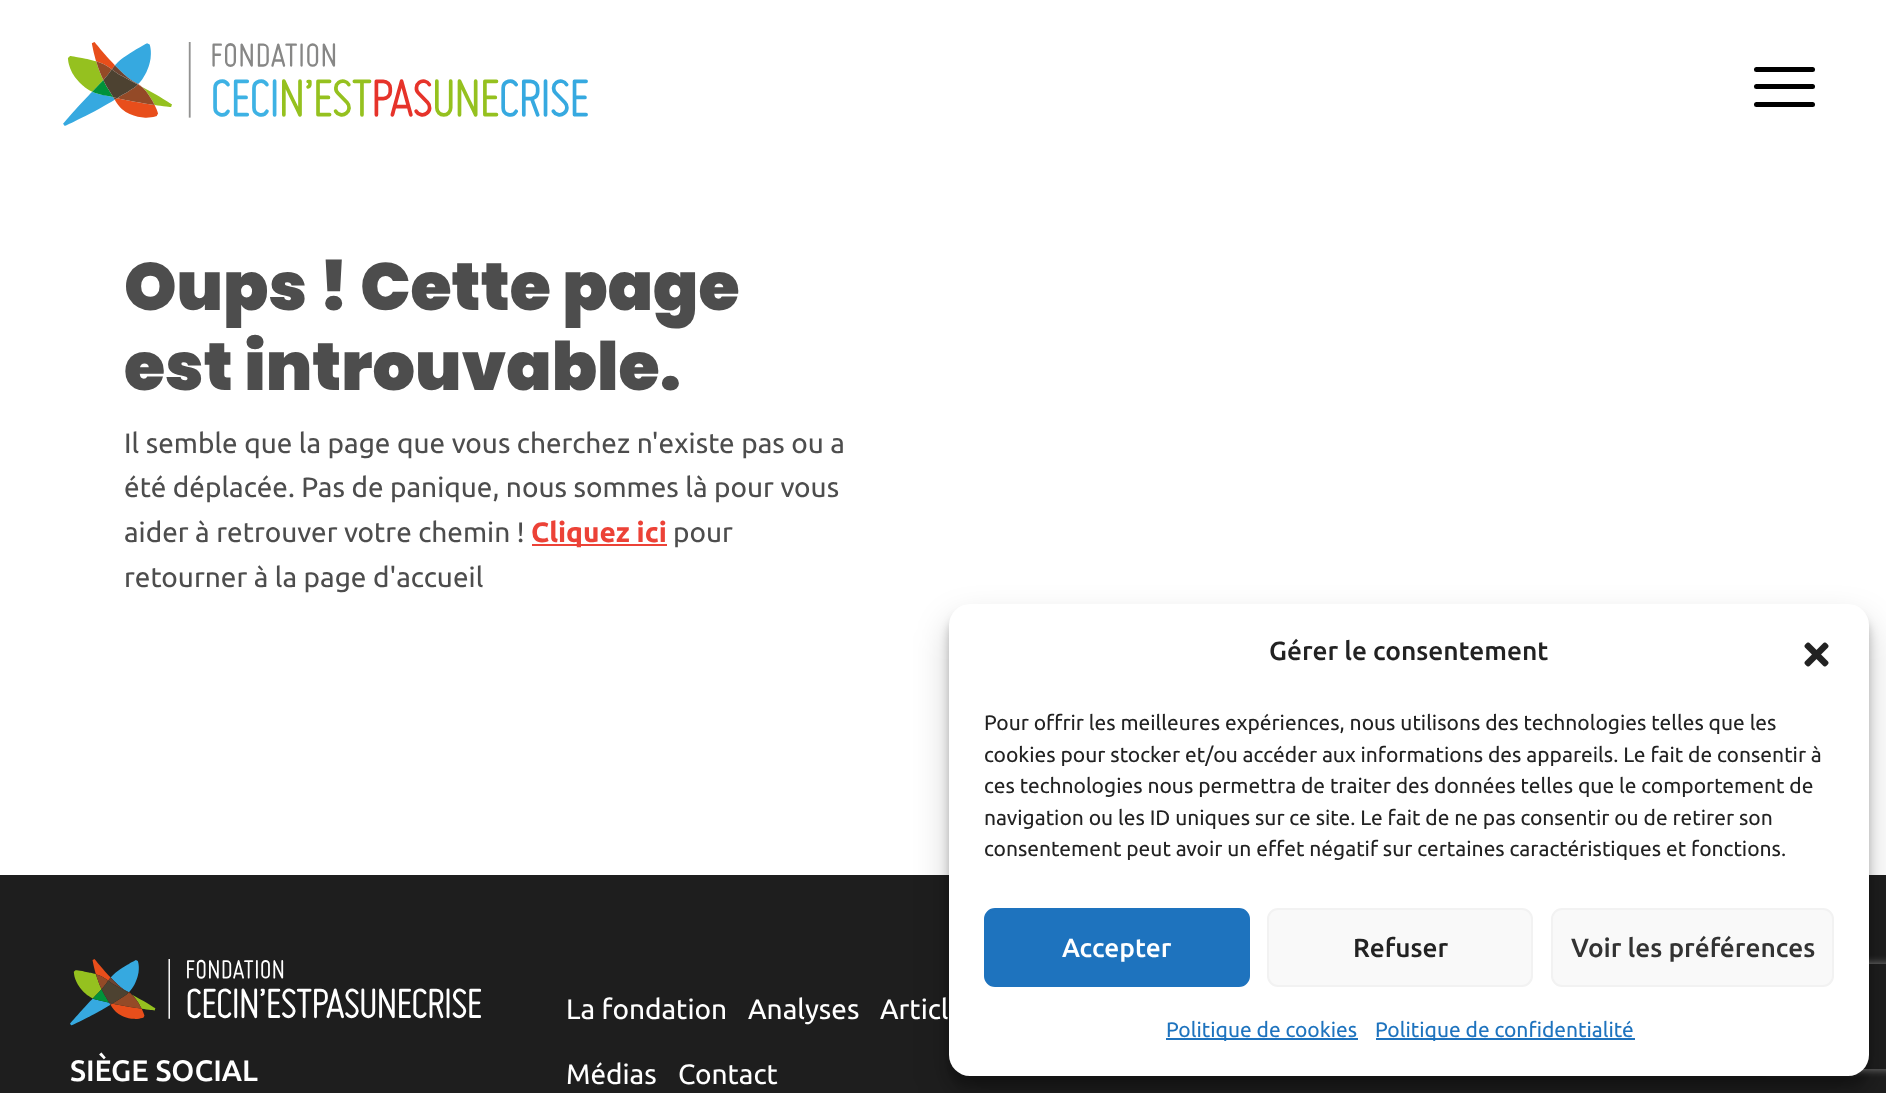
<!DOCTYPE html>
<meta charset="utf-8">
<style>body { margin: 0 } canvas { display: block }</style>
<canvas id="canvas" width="1886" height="1093"></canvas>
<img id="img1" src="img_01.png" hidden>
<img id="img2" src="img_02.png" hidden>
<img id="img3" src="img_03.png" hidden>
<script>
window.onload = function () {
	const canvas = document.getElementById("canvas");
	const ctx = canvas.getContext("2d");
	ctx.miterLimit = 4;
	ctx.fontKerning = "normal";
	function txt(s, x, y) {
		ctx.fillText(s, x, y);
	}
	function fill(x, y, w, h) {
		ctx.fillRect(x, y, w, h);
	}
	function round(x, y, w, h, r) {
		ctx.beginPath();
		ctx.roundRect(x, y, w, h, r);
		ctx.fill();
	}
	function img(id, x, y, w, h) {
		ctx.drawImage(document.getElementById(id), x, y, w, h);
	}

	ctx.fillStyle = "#FFFFFF";
	fill(0, 0, 1886, 1093);
	img("img1", 63, 42, 525, 84);
	ctx.fillStyle = "#000000";
	round(1754, 84, 61, 5, 2.5);
	round(1754, 67, 61, 5, 2.5);
	round(1754, 102, 61, 5, 2.5);
	ctx.fillStyle = "#EC4237";
	fill(532, 544, 135, 2);
	ctx.fillStyle = "#1E1E1E";
	fill(0, 875, 1886, 218);
	ctx.fillStyle = "rgba(0, 0, 0, 0.23)";
	ctx.filter = "blur(5px)";
	ctx.beginPath();
	ctx.roundRect(949, 614, 920, 473, 21);
	ctx.fill();
	ctx.filter = "none";
	ctx.fillStyle = "rgba(0, 0, 0, 0.19)";
	ctx.filter = "blur(17.5px)";
	ctx.beginPath();
	ctx.roundRect(949, 621, 920, 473, 21);
	ctx.fill();
	ctx.filter = "none";
	ctx.save();
	ctx.beginPath();
	ctx.moveTo(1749, 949);
	ctx.lineTo(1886, 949);
	ctx.lineTo(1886, 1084);
	ctx.lineTo(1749, 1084);
	ctx.closePath();
	ctx.moveTo(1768, 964);
	ctx.lineTo(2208, 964);
	ctx.bezierCurveTo(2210, 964, 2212, 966, 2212, 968);
	ctx.lineTo(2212, 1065);
	ctx.bezierCurveTo(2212, 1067, 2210, 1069, 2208, 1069);
	ctx.lineTo(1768, 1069);
	ctx.bezierCurveTo(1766, 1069, 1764, 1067, 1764, 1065);
	ctx.lineTo(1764, 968);
	ctx.bezierCurveTo(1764, 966, 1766, 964, 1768, 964);
	ctx.closePath();
	ctx.clip("evenodd");
	ctx.fillStyle = "#808080";
	ctx.filter = "blur(4.5px)";
	ctx.beginPath();
	ctx.roundRect(1764, 964, 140, 105, 4);
	ctx.fill();
	ctx.filter = "none";
	ctx.restore();
	ctx.fillStyle = "#FFFFFF";
	round(949, 604, 920, 472, 21);
	img("img2", 1804, 642, 25, 25);
	ctx.fillStyle = "#1E73BE";
	ctx.beginPath();
	ctx.roundRect(985, 909, 264, 77, 10);
	ctx.fill();
	ctx.strokeStyle = "#1E73BE";
	ctx.lineWidth = 2;
	ctx.stroke();
	ctx.fillStyle = "#F9F9F9";
	ctx.beginPath();
	ctx.roundRect(1268, 909, 264, 77, 10);
	ctx.fill();
	ctx.strokeStyle = "#F2F2F2";
	ctx.stroke();
	ctx.beginPath();
	ctx.roundRect(1552, 909, 281, 77, 10);
	ctx.fill();
	ctx.stroke();
	ctx.fillStyle = "#1E73BE";
	fill(1166, 1038, 192, 2);
	fill(1376, 1038, 259, 2);
	img("img3", 70, 959, 411, 67);
	ctx.font = "900 66.75px Poppins";
	ctx.fillStyle = "#4D4D4D";
	txt("Oups ! Cette page", 124, 310);
	txt("est introuvable.", 124, 390);
	ctx.font = "28px Ubuntu";
	txt("Il semble que la page que vous cherchez n'existe pas ou a", 124, 453);
	txt("été déplacée. Pas de panique, nous sommes là pour vous", 124, 497);
	txt("aider à retrouver votre chemin !", 124, 542);
	ctx.font = "bold 28px Ubuntu";
	ctx.fillStyle = "#EC4237";
	txt("Cliquez ici", 531, 542);
	ctx.font = "28px Ubuntu";
	ctx.fillStyle = "#4D4D4D";
	txt("pour", 673, 542);
	txt("retourner à la page d'accueil", 124, 587);
	ctx.font = "500 26.25px Ubuntu";
	ctx.fillStyle = "#222222";
	txt("Gérer le consentement", 1269, 660);
	ctx.font = "21px Ubuntu";
	txt("Pour offrir les meilleures expériences, nous utilisons des technologies telles que les", 984, 730);
	txt("cookies pour stocker et/ou accéder aux informations des appareils. Le fait de consentir à", 984, 762);
	txt("ces technologies nous permettra de traiter des données telles que le comportement de", 984, 793);
	txt("navigation ou les ID uniques sur ce site. Le fait de ne pas consentir ou de retirer son", 984, 825);
	txt("consentement peut avoir un effet négatif sur certaines caractéristiques et fonctions.", 984, 856);
	ctx.font = "500 26.25px Ubuntu";
	ctx.fillStyle = "#FFFFFF";
	txt("Accepter", 1062, 957);
	ctx.fillStyle = "#222222";
	txt("Refuser", 1353, 957);
	ctx.fillStyle = "#333333";
	txt("Voir les préférences", 1571, 957);
	ctx.font = "21px Ubuntu";
	ctx.fillStyle = "#1E73BE";
	txt("Politique de cookies", 1166, 1037);
	txt("Politique de confidentialité", 1375, 1037);
	ctx.font = "500 29.5px Ubuntu";
	ctx.fillStyle = "#FFFFFF";
	txt("SIÈGE SOCIAL", 70, 1081);
	ctx.font = "28px Ubuntu";
	txt("La fondation", 566, 1019);
	txt("Analyses", 748, 1019);
	txt("Articl", 880, 1019);
	txt("Médias", 566, 1084);
	txt("Contact", 678, 1084);
};
</script>
